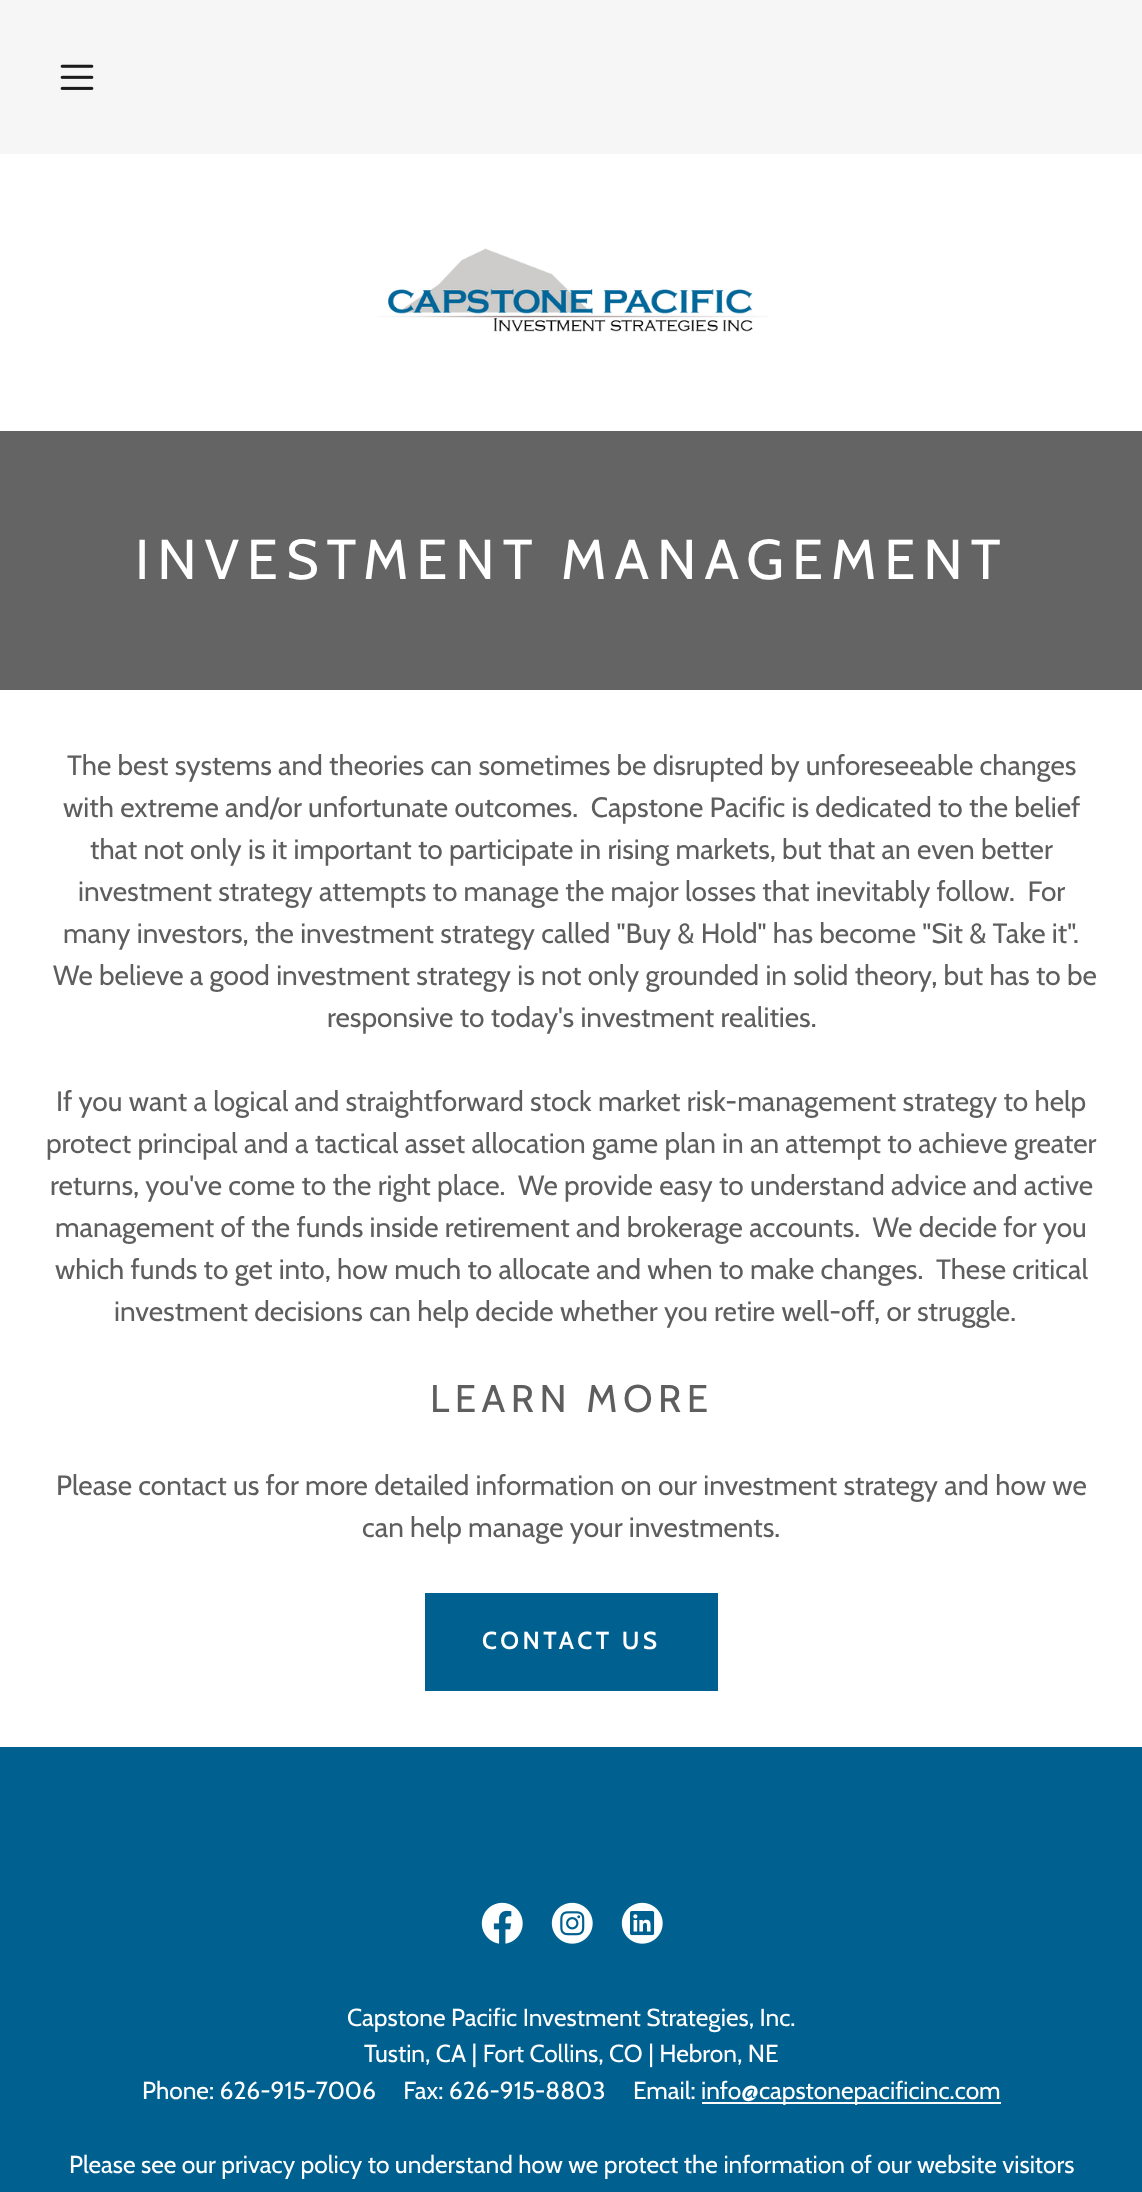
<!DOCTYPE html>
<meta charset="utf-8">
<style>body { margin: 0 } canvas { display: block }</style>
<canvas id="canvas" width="1142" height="2192"></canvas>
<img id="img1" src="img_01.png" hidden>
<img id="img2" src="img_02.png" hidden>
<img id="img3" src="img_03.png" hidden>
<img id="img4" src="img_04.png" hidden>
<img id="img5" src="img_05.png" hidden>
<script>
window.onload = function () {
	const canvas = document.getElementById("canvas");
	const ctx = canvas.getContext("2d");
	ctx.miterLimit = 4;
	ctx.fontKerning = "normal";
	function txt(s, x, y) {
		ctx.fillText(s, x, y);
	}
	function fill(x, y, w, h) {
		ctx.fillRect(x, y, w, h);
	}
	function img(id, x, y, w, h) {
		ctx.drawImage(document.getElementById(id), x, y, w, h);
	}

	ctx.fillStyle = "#006090";
	fill(0, 0, 1142, 2192);
	ctx.fillStyle = "#FFFFFF";
	fill(0, 154, 1142, 277);
	ctx.fillStyle = "#F6F6F6";
	fill(0, 0, 1142, 154);
	img("img1", 60, 64, 34, 26);
	img("img2", 377, 248, 391, 84);
	ctx.fillStyle = "#646464";
	fill(0, 431, 1142, 259);
	ctx.fillStyle = "#FFFFFF";
	fill(0, 690, 1142, 1057);
	ctx.fillStyle = "#006090";
	fill(425, 1593, 293, 98);
	img("img3", 481, 1902, 42, 42);
	img("img4", 551, 1902, 42, 42);
	img("img5", 621, 1902, 42, 42);
	ctx.fillStyle = "#FFFFFF";
	fill(702, 2102, 299, 2);
	ctx.letterSpacing = "8px";
	ctx.font = "56px Cabin";
	txt("INVESTMENT MANAGEMENT", 135, 579);
	ctx.letterSpacing = "0px";
	ctx.font = "28px Cabin";
	ctx.fillStyle = "#5E5E5E";
	txt("The best systems and theories can sometimes be disrupted by unforeseeable changes", 67, 775);
	txt("with extreme and/or unfortunate outcomes.  Capstone Pacific is dedicated to the belief", 63, 817);
	txt("that not only is it important to participate in rising markets, but that an even better", 90, 859);
	txt("investment strategy attempts to manage the major losses that inevitably follow.  For", 78, 901);
	txt("many investors, the investment strategy called \"Buy & Hold\" has become \"Sit & Take it\".", 63, 943);
	txt("We believe a good investment strategy is not only grounded in solid theory, but has to be", 53, 985);
	txt("responsive to today's investment realities.", 327, 1027);
	txt("If you want a logical and straightforward stock market risk-management strategy to help", 56, 1111);
	txt("protect principal and a tactical asset allocation game plan in an attempt to achieve greater", 46, 1153);
	txt("returns, you've come to the right place.  We provide easy to understand advice and active", 50, 1195);
	txt("management of the funds inside retirement and brokerage accounts.  We decide for you", 55, 1237);
	txt("which funds to get into, how much to allocate and when to make changes.  These critical", 55, 1279);
	txt("investment decisions can help decide whether you retire well-off, or struggle.", 114, 1321);
	ctx.letterSpacing = "5.5px";
	ctx.font = "38.5px Cabin";
	txt("LEARN MORE", 430, 1412);
	ctx.letterSpacing = "0px";
	ctx.font = "28px Cabin";
	txt("Please contact us for more detailed information on our investment strategy and how we", 56, 1495);
	txt("can help manage your investments.", 362, 1537);
	ctx.letterSpacing = "3.5px";
	ctx.font = "600 24.5px Cabin";
	ctx.fillStyle = "#FFFFFF";
	txt("CONTACT US", 482, 1649);
	ctx.letterSpacing = "0px";
	ctx.font = "24.5px Cabin";
	txt("Capstone Pacific Investment Strategies, Inc.", 347, 2026);
	txt("Tustin, CA | Fort Collins, CO | Hebron, NE", 364, 2062);
	txt("Phone: 626-915-7006     Fax: 626-915-8803     Email:", 142, 2099);
	txt("info@capstonepacificinc.com", 701, 2099);
	txt("Please see our privacy policy to understand how we protect the information of our website visitors", 69, 2173);
};
</script>
